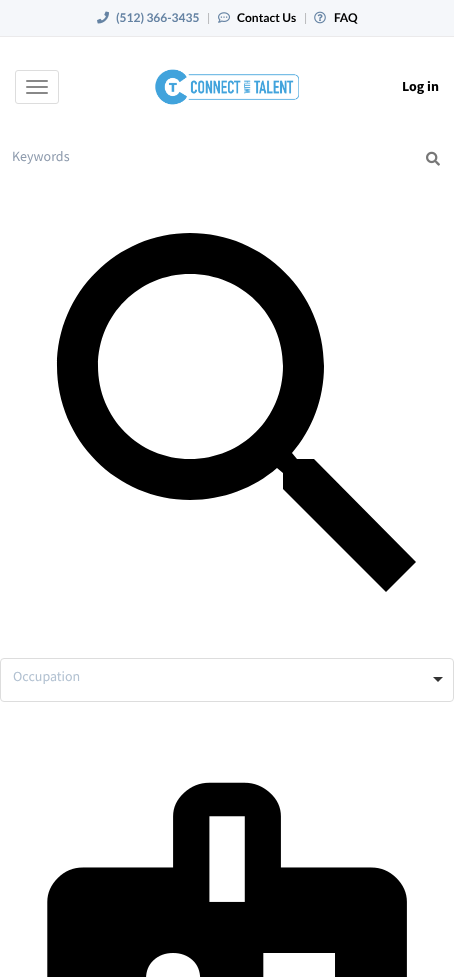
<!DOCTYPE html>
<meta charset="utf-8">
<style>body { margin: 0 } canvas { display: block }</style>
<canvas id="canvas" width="454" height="977"></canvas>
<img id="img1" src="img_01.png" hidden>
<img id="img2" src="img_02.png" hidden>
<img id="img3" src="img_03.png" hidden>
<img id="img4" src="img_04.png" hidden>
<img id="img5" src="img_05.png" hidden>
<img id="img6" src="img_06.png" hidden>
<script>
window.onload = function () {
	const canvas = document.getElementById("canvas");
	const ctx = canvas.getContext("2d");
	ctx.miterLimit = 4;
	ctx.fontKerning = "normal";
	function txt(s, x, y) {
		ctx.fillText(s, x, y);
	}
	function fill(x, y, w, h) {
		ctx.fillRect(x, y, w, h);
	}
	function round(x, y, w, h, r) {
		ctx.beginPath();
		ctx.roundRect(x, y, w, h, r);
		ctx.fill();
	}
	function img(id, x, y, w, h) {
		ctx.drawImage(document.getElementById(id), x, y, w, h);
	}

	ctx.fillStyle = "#FFFFFF";
	fill(0, 0, 454, 977);
	ctx.fillStyle = "#F5F7FA";
	fill(0, 0, 454, 36);
	ctx.fillStyle = "#EBEAEB";
	fill(0, 36, 454, 1);
	img("img1", 97, 11, 12, 13);
	img("img2", 218, 12, 12, 11);
	img("img3", 314, 11, 12, 13);
	ctx.beginPath();
	ctx.roundRect(15.5, 70.5, 43, 33, 2.5);
	ctx.strokeStyle = "#DDDDDD";
	ctx.stroke();
	ctx.fillStyle = "#888888";
	round(26, 80, 22, 2, 1);
	round(26, 86, 22, 2, 1);
	round(26, 92, 22, 2, 1);
	img("img4", 155, 69, 144, 36);
	img("img5", 426, 151, 14, 15);
	ctx.fillStyle = "#000000";
	ctx.beginPath();
	ctx.moveTo(314, 459);
	ctx.lineTo(297, 459);
	ctx.lineTo(292, 453);
	ctx.bezierCurveTo(312, 430, 324, 399, 324, 366);
	ctx.bezierCurveTo(324, 293, 264, 233, 190, 233);
	ctx.bezierCurveTo(117, 233, 57, 293, 57, 366);
	ctx.bezierCurveTo(57, 440, 117, 500, 190, 500);
	ctx.bezierCurveTo(223, 500, 254, 488, 277, 468);
	ctx.lineTo(283, 473);
	ctx.lineTo(283, 489);
	ctx.lineTo(386, 592);
	ctx.lineTo(416, 562);
	ctx.closePath();
	ctx.moveTo(190, 459);
	ctx.bezierCurveTo(139, 459, 98, 418, 98, 366);
	ctx.bezierCurveTo(98, 315, 139, 274, 190, 274);
	ctx.bezierCurveTo(242, 274, 283, 315, 283, 366);
	ctx.bezierCurveTo(283, 418, 242, 459, 190, 459);
	ctx.closePath();
	ctx.fill();
	ctx.beginPath();
	ctx.roundRect(0.5, 658.5, 453, 43, 3.5);
	ctx.stroke();
	ctx.fillStyle = "#333333";
	ctx.beginPath();
	ctx.moveTo(433, 677);
	ctx.lineTo(443, 677);
	ctx.lineTo(438, 682);
	ctx.closePath();
	ctx.fill();
	img("img6", 47, 782, 360, 195);
	ctx.font = "bold 12px Lato";
	ctx.fillStyle = "#6583A3";
	txt("(512) 366-3435", 116, 22);
	ctx.font = "300 12px Lato";
	ctx.fillStyle = "#777777";
	txt("|", 207, 22);
	ctx.font = "bold 12px Lato";
	ctx.fillStyle = "#000000";
	txt("Contact Us", 237, 22);
	ctx.font = "300 12px Lato";
	ctx.fillStyle = "#777777";
	txt("|", 304, 22);
	ctx.font = "bold 12px Lato";
	ctx.fillStyle = "#000000";
	txt("FAQ", 334, 22);
	ctx.font = "bold 14px Source Sans Pro";
	txt("Log in", 402, 91);
	ctx.font = "14px Source Sans Pro";
	ctx.fillStyle = "#8E9BAD";
	txt("Keywords", 12, 161);
	ctx.fillStyle = "#B2C1D1";
	txt("Occupation", 13, 681);
};
</script>
